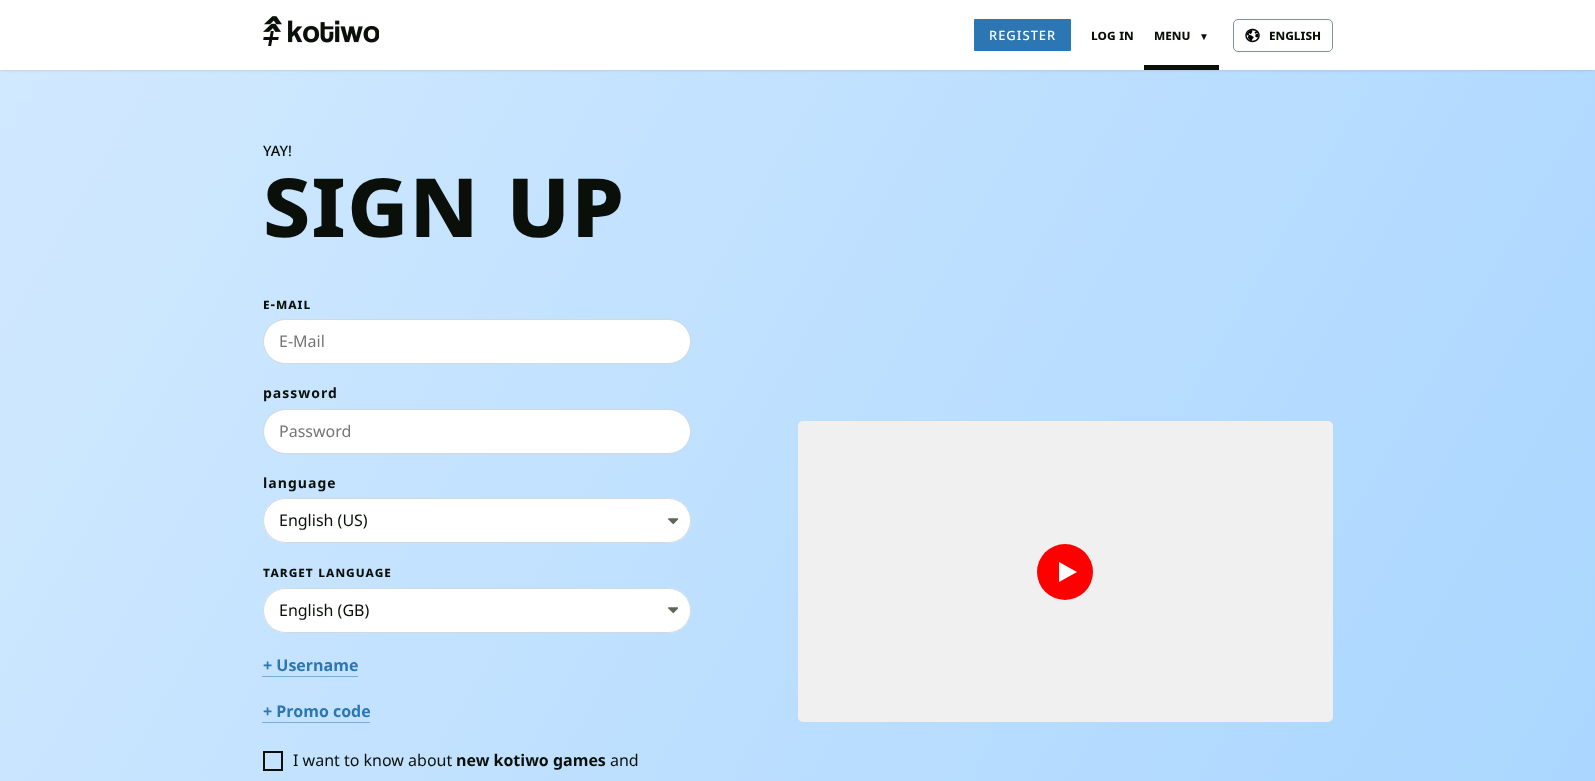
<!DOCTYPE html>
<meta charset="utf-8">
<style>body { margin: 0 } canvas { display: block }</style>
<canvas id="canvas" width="1595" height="781"></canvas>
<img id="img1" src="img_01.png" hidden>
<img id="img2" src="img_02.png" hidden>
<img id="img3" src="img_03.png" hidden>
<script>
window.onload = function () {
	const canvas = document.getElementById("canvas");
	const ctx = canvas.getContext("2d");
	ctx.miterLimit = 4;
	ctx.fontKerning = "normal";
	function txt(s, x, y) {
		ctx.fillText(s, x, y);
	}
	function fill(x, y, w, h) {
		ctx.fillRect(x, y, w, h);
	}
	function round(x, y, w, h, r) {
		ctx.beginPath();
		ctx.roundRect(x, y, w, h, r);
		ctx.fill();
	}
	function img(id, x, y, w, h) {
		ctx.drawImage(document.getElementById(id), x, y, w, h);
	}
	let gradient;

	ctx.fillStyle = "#FFFFFF";
	fill(0, 0, 1595, 781);
	gradient = ctx.createLinearGradient(-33, 57, 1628, 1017);
	gradient.addColorStop(0.02, "#D1E9FF");
	gradient.addColorStop(0.98, "#A8D5FF");
	ctx.fillStyle = gradient;
	fill(0, 70, 1595, 711);
	ctx.fillStyle = "rgba(0, 0, 0, 0.8)";
	ctx.filter = "blur(2.5px)";
	ctx.beginPath();
	ctx.rect(0, -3, 1595, 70);
	ctx.fill();
	ctx.filter = "none";
	ctx.fillStyle = "#FFFFFF";
	fill(0, 0, 1595, 70);
	img("img1", 263, 16, 116, 30);
	ctx.fillStyle = "#2B76B3";
	round(974, 19, 97, 32, 1);
	ctx.fillStyle = "#0A1009";
	fill(1144, 65, 75, 5);
	ctx.beginPath();
	ctx.roundRect(1233.5, 19.5, 99, 32, 4.5);
	ctx.strokeStyle = "#7E929F";
	ctx.stroke();
	img("img2", 1245, 28, 15, 15);
	ctx.fillStyle = "#FFFFFF";
	ctx.beginPath();
	ctx.roundRect(263.5, 319.5, 427, 44, 22);
	ctx.fill();
	ctx.strokeStyle = "#D0D9DE";
	ctx.stroke();
	ctx.beginPath();
	ctx.roundRect(263.5, 409.5, 427, 44, 22);
	ctx.fill();
	ctx.stroke();
	round(263, 498, 428, 45, 22.5);
	img("img3", 668, 518, 10, 7);
	ctx.beginPath();
	ctx.roundRect(263.5, 498.5, 427, 44, 22);
	ctx.stroke();
	round(263, 588, 428, 45, 22.5);
	img("img3", 668, 607, 10, 7);
	ctx.beginPath();
	ctx.roundRect(263.5, 588.5, 427, 44, 22);
	ctx.stroke();
	ctx.beginPath();
	ctx.moveTo(262.5, 676.5);
	ctx.lineTo(358, 676.5);
	ctx.strokeStyle = "#2B76B3";
	ctx.setLineDash([1, 1]);
	ctx.stroke();
	ctx.beginPath();
	ctx.moveTo(262.5, 722.5);
	ctx.lineTo(370, 722.5);
	ctx.stroke();
	ctx.strokeStyle = "#0A1009";
	ctx.lineWidth = 2;
	ctx.setLineDash([]);
	ctx.strokeRect(264, 752, 18, 18);
	ctx.fillStyle = "#F0F0F0";
	round(798, 421, 535, 301, 5);
	ctx.fillStyle = "#FF0000";
	ctx.beginPath();
	ctx.arc(1065, 572, 28, 0, Math.PI * 2);
	ctx.fill();
	ctx.fillStyle = "#FFFFFF";
	ctx.beginPath();
	ctx.moveTo(1059, 582);
	ctx.lineTo(1059, 562);
	ctx.lineTo(1077, 572);
	ctx.closePath();
	ctx.fill();
	ctx.letterSpacing = "1px";
	ctx.font = "16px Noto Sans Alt";
	txt("register", 989, 40);
	ctx.letterSpacing = "0px";
	ctx.font = "bold 14px Noto Sans Alt";
	ctx.fillStyle = "#0A1009";
	txt("log in", 1091, 40);
	txt("menu", 1154, 40);
	ctx.font = "bold 10px Liberation Sans";
	txt("▼", 1199, 40);
	ctx.font = "bold 14px Noto Sans Alt";
	txt("english", 1269, 40);
	ctx.font = "18px Noto Sans Alt";
	txt("yay!", 263, 156);
	ctx.letterSpacing = "1px";
	ctx.font = "bold 100px Noto Sans Alt";
	txt("sign up", 263, 237);
	ctx.font = "bold 14px Noto Sans Alt";
	txt("e-mail", 263, 309);
	ctx.letterSpacing = "0px";
	ctx.font = "16px Noto Sans";
	ctx.fillStyle = "#757575";
	txt("E-Mail", 279, 347);
	ctx.letterSpacing = "1px";
	ctx.font = "bold 14px Noto Sans";
	ctx.fillStyle = "#0A1009";
	txt("password", 263, 398);
	ctx.letterSpacing = "0px";
	ctx.font = "16px Noto Sans";
	ctx.fillStyle = "#757575";
	txt("Password", 279, 437);
	ctx.letterSpacing = "1px";
	ctx.font = "bold 14px Noto Sans";
	ctx.fillStyle = "#0A1009";
	txt("language", 263, 488);
	ctx.letterSpacing = "0px";
	ctx.font = "16px Noto Sans";
	txt("English (US)", 279, 526);
	ctx.letterSpacing = "1px";
	ctx.font = "bold 14px Noto Sans Alt";
	txt("target language", 263, 577);
	ctx.letterSpacing = "0px";
	ctx.font = "16px Noto Sans";
	txt("English (GB)", 279, 616);
	ctx.font = "bold 16px Noto Sans";
	ctx.fillStyle = "#2B76B3";
	txt("+ Username", 263, 671);
	txt("+ Promo code", 263, 717);
	ctx.font = "16px Noto Sans";
	ctx.fillStyle = "#0A1009";
	txt("I want to know about", 293, 766);
	ctx.font = "bold 16px Noto Sans";
	txt("new kotiwo games", 456, 766);
	ctx.font = "16px Noto Sans";
	txt("and", 610, 766);
};
</script>
